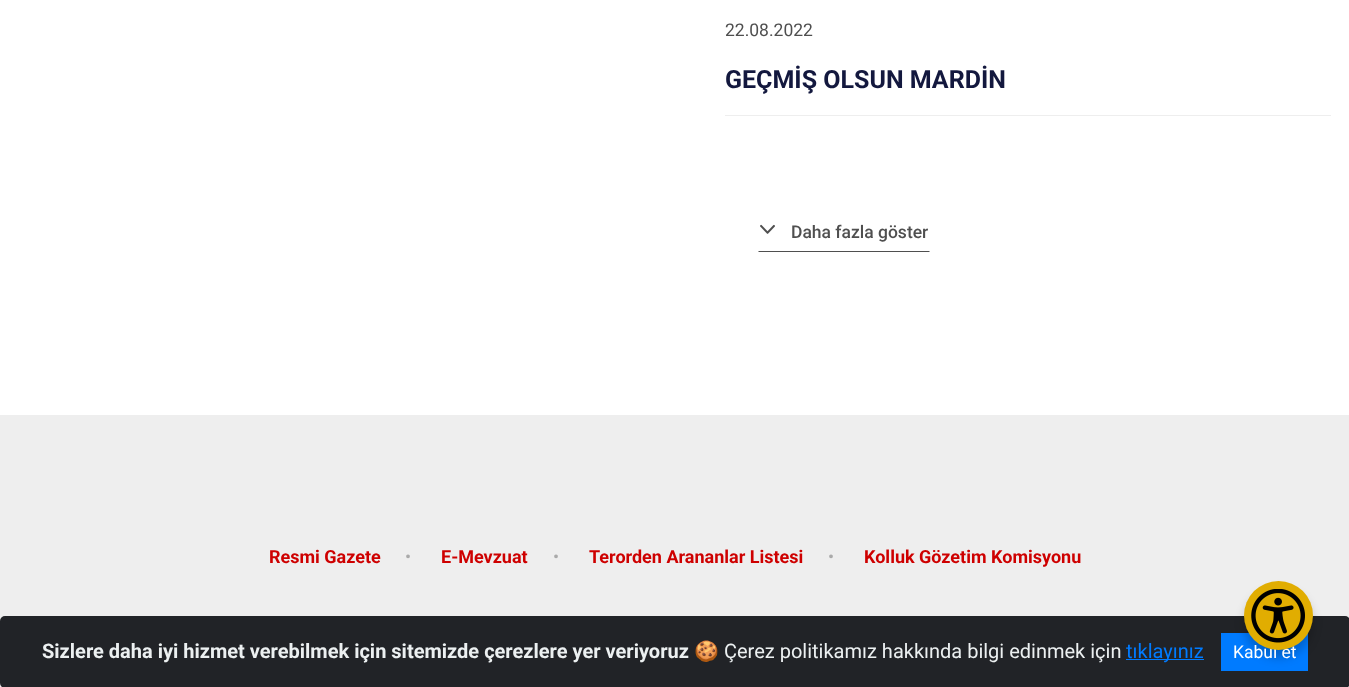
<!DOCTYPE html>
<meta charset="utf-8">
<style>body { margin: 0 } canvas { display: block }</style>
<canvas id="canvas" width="1349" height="687"></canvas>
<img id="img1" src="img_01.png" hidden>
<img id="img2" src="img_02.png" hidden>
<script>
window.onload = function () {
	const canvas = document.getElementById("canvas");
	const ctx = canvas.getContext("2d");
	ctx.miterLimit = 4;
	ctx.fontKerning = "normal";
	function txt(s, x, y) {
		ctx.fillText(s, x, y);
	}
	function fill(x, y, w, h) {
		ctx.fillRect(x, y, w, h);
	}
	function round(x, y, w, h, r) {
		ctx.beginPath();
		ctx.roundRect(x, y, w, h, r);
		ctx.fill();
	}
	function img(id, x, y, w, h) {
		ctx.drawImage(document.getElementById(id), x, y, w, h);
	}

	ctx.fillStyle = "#FFFFFF";
	fill(0, 0, 1349, 687);
	ctx.fillStyle = "#EEEEEE";
	fill(725, 115, 606, 1);
	ctx.fillStyle = "#4F4F4F";
	ctx.beginPath();
	ctx.moveTo(930, 252);
	ctx.lineTo(758, 252);
	ctx.lineTo(759, 251);
	ctx.lineTo(929, 251);
	ctx.closePath();
	ctx.fill();
	img("img1", 760, 224, 15, 10);
	ctx.fillStyle = "#EEEEEE";
	fill(0, 415, 1349, 272);
	ctx.fillStyle = "#212327";
	round(0, 616, 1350, 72, 5);
	ctx.fillStyle = "#007BFF";
	fill(1221, 633, 87, 38);
	ctx.fillStyle = "rgba(0, 0, 0, 0.2)";
	ctx.filter = "blur(5px)";
	ctx.beginPath();
	ctx.roundRect(1244, 589, 69, 69, 34.5);
	ctx.fill();
	ctx.filter = "none";
	ctx.fillStyle = "#007BFF";
	fill(1126, 659, 78, 1);
	ctx.font = "17.5px Roboto";
	ctx.fillStyle = "#4F4F4F";
	txt("22.08.2022", 725, 36);
	ctx.font = "bold 25px Roboto";
	ctx.fillStyle = "#13183E";
	txt("GEÇMİŞ OLSUN MARDİN", 725, 88);
	ctx.font = "500 17.5px Roboto";
	ctx.fillStyle = "#4F4F4F";
	txt("Daha fazla göster", 791, 238);
	ctx.font = "bold 18px Roboto";
	ctx.fillStyle = "#CE0000";
	txt("Resmi Gazete", 269, 563);
	ctx.font = "18px Roboto";
	ctx.fillStyle = "#AAAAAA";
	txt("•", 405, 563);
	ctx.font = "bold 18px Roboto";
	ctx.fillStyle = "#CE0000";
	txt("E-Mevzuat", 441, 563);
	ctx.font = "18px Roboto";
	ctx.fillStyle = "#AAAAAA";
	txt("•", 553, 563);
	ctx.font = "bold 18px Roboto";
	ctx.fillStyle = "#CE0000";
	txt("Terorden Arananlar Listesi", 589, 563);
	ctx.font = "18px Roboto";
	ctx.fillStyle = "#AAAAAA";
	txt("•", 828, 563);
	ctx.font = "bold 18px Roboto";
	ctx.fillStyle = "#CE0000";
	txt("Kolluk Gözetim Komisyonu", 864, 563);
	ctx.font = "bold 20px Roboto";
	ctx.fillStyle = "#ECF0F1";
	txt("Sizlere daha iyi hizmet verebilmek için sitemizde çerezlere yer veriyoruz", 42, 658);
	ctx.font = "20px Noto Color Emoji";
	txt("🍪", 694, 658);
	ctx.font = "20px Roboto";
	txt("Çerez politikamız hakkında bilgi edinmek için", 724, 658);
	ctx.fillStyle = "#007BFF";
	txt("tıklayınız", 1126, 658);
	ctx.font = "17.5px Roboto";
	ctx.fillStyle = "#FFFFFF";
	txt("Kabul et", 1233, 658);
	ctx.fillStyle = "#E1AD01";
	ctx.beginPath();
	ctx.arc(1278.5, 615.5, 34.5, 0, Math.PI * 2);
	ctx.fill();
	img("img2", 1251, 589, 54, 54);
};
</script>
